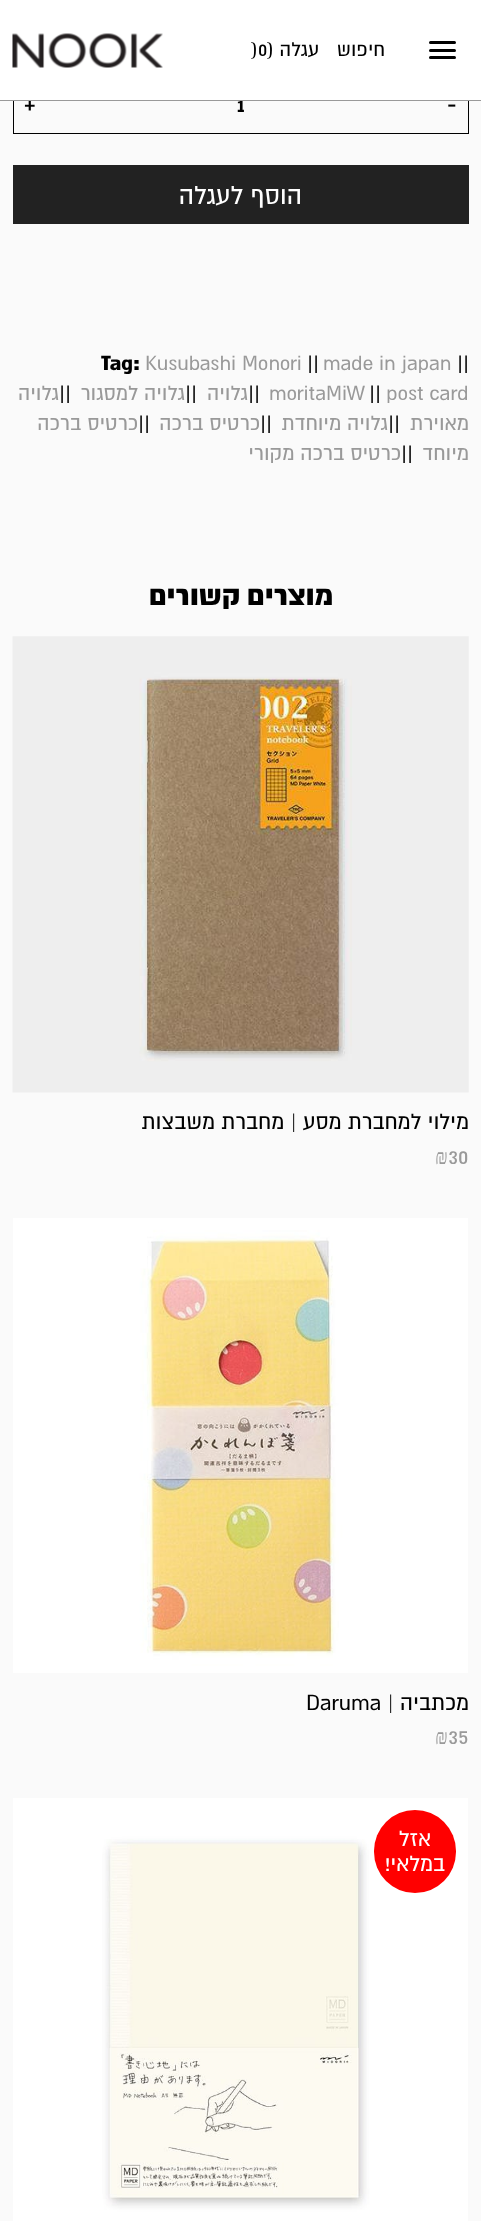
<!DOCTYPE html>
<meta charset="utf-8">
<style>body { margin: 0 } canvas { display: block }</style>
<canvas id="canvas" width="481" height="2221"></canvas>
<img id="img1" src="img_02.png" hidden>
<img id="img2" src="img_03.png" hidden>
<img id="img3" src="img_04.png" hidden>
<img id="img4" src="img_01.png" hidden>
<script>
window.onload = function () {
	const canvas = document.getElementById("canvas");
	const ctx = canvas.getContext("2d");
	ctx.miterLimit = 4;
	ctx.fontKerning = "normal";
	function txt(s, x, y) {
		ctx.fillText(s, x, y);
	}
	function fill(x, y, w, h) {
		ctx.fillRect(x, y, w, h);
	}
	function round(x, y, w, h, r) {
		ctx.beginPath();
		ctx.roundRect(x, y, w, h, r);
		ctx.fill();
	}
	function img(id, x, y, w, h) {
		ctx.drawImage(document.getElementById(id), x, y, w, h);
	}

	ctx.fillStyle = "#FAFAFA";
	fill(0, 0, 481, 2221);
	ctx.strokeStyle = "#000000";
	ctx.strokeRect(13.5, 75.5, 455, 58);
	ctx.fillStyle = "#222222";
	fill(13, 165, 456, 59);
	img("img1", 12, 636, 457, 457);
	img("img2", 13, 1218, 455, 455);
	img("img3", 13, 1798, 455, 423);
	ctx.fillStyle = "#FF0000";
	round(374, 1810, 82, 83, 41);
	ctx.font = "21.25px 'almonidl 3'";
	ctx.fillStyle = "#000000";
	txt("-", 447, 112);
	txt("1", 237, 112);
	ctx.fillStyle = "#FFFFFF";
	fill(0, 0, 481, 100);
	ctx.direction = "rtl";
	ctx.font = "19px 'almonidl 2'";
	ctx.fillStyle = "#000000";
	txt("חיפוש", 385, 56);
	round(429, 56, 27, 3, 1.5);
	round(429, 49, 27, 3, 1.5);
	round(429, 41, 27, 3, 1.5);
	img("img4", 12, 33, 151, 35);
	txt("עגלה (", 319, 56);
	ctx.direction = "ltr";
	txt(")0", 251, 56);
	ctx.font = "21.25px 'almonidl 3'";
	txt("+", 24, 112);
	ctx.fillStyle = "#999999";
	fill(0, 100, 481, 1);
	ctx.direction = "rtl";
	ctx.font = "25px 'almonidl 2'";
	ctx.fillStyle = "#FFFFFF";
	txt("הוסף לעגלה", 302, 204);
	ctx.direction = "ltr";
	ctx.font = "20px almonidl";
	ctx.fillStyle = "#000000";
	txt("||", 457, 370);
	ctx.font = "20px 'almonidl 2'";
	ctx.fillStyle = "#999999";
	txt("made in japan", 323, 370);
	ctx.font = "20px almonidl";
	ctx.fillStyle = "#000000";
	txt("||", 307, 370);
	ctx.font = "20px 'almonidl 2'";
	ctx.fillStyle = "#999999";
	txt("Kusubashi Monori", 145, 370);
	ctx.font = "20px almonidl";
	ctx.fillStyle = "#000000";
	txt("Tag:", 101, 370);
	ctx.font = "20px 'almonidl 2'";
	ctx.fillStyle = "#999999";
	txt("post card", 386, 400);
	ctx.font = "20px almonidl";
	ctx.fillStyle = "#000000";
	txt("||", 369, 400);
	ctx.font = "20px 'almonidl 2'";
	ctx.fillStyle = "#999999";
	txt("moritaMiW", 269, 400);
	ctx.font = "20px almonidl";
	ctx.fillStyle = "#000000";
	txt("||", 248, 400);
	ctx.direction = "rtl";
	ctx.font = "20px 'almonidl 2'";
	ctx.fillStyle = "#999999";
	txt("גלויה", 248, 400);
	ctx.direction = "ltr";
	ctx.font = "20px almonidl";
	ctx.fillStyle = "#000000";
	txt("||", 185, 400);
	ctx.direction = "rtl";
	ctx.font = "20px 'almonidl 2'";
	ctx.fillStyle = "#999999";
	txt("גלויה למסגור", 185, 400);
	ctx.direction = "ltr";
	ctx.font = "20px almonidl";
	ctx.fillStyle = "#000000";
	txt("||", 59, 400);
	ctx.direction = "rtl";
	ctx.font = "20px 'almonidl 2'";
	ctx.fillStyle = "#999999";
	txt("גלויה", 59, 400);
	txt("מאוירת", 469, 430);
	ctx.direction = "ltr";
	ctx.font = "20px almonidl";
	ctx.fillStyle = "#000000";
	txt("||", 388, 430);
	ctx.direction = "rtl";
	ctx.font = "20px 'almonidl 2'";
	ctx.fillStyle = "#999999";
	txt("גלויה מיוחדת", 388, 430);
	ctx.direction = "ltr";
	ctx.font = "20px almonidl";
	ctx.fillStyle = "#000000";
	txt("||", 260, 430);
	ctx.direction = "rtl";
	ctx.font = "20px 'almonidl 2'";
	ctx.fillStyle = "#999999";
	txt("כרטיס ברכה", 260, 430);
	ctx.direction = "ltr";
	ctx.font = "20px almonidl";
	ctx.fillStyle = "#000000";
	txt("||", 138, 430);
	ctx.direction = "rtl";
	ctx.font = "20px 'almonidl 2'";
	ctx.fillStyle = "#999999";
	txt("כרטיס ברכה", 138, 430);
	txt("מיוחד", 469, 460);
	ctx.direction = "ltr";
	ctx.font = "20px almonidl";
	ctx.fillStyle = "#000000";
	txt("||", 401, 460);
	ctx.direction = "rtl";
	ctx.font = "20px 'almonidl 2'";
	ctx.fillStyle = "#999999";
	txt("כרטיס ברכה מקורי", 401, 460);
	ctx.font = "27.5px almonidl";
	ctx.fillStyle = "#000000";
	txt("מוצרים קשורים", 333, 605);
	ctx.font = "21.25px 'almonidl 2'";
	txt("מילוי למחברת מסע | מחברת משבצות", 469, 1129);
	ctx.direction = "ltr";
	ctx.fillStyle = "#999999";
	txt("30", 448, 1164);
	ctx.font = "21.25px Liberation Serif";
	txt("₪", 435, 1164);
	ctx.direction = "rtl";
	ctx.font = "21.25px 'almonidl 2'";
	ctx.fillStyle = "#000000";
	txt("מכתביה |", 469, 1710);
	ctx.direction = "ltr";
	txt("Daruma", 306, 1710);
	ctx.fillStyle = "#999999";
	txt("35", 448, 1744);
	ctx.font = "21.25px Liberation Serif";
	txt("₪", 435, 1744);
	ctx.direction = "rtl";
	ctx.font = "21.25px 'almonidl 2'";
	ctx.fillStyle = "#FFFFFF";
	txt("אזל", 431, 1846);
	txt("במלאי!", 445, 1871);
};
</script>
